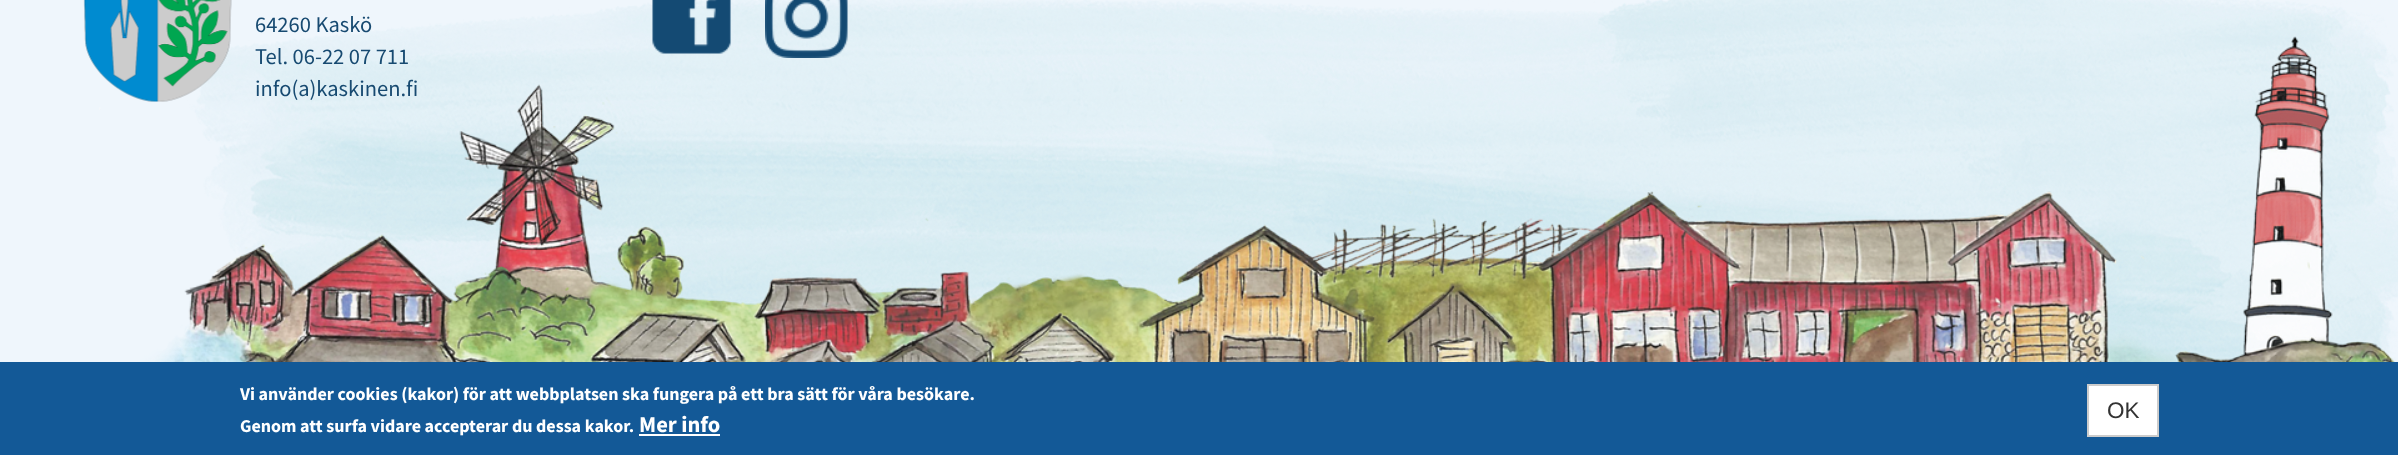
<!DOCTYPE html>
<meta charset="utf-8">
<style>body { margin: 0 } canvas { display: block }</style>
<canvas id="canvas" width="2398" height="455"></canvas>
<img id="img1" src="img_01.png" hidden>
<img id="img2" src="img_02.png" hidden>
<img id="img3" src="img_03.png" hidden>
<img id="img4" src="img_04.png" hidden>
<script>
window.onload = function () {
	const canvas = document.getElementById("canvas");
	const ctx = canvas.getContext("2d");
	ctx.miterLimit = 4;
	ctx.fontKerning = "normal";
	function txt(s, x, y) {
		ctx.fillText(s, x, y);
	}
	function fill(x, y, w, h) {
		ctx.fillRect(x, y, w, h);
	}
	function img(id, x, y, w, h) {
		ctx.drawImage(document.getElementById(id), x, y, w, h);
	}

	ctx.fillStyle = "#EFF6FC";
	fill(0, 0, 2398, 455);
	img("img1", 99, 0, 2299, 362);
	img("img2", 83, 0, 149, 102);
	img("img3", 652, 0, 79, 54);
	img("img4", 765, 0, 83, 58);
	ctx.fillStyle = "#135997";
	fill(0, 362, 2398, 93);
	ctx.fillStyle = "#FFFFFF";
	fill(639, 434, 81, 2);
	ctx.beginPath();
	ctx.rect(2088, 385, 70, 51);
	ctx.fill();
	ctx.strokeStyle = "#CCCCCC";
	ctx.lineWidth = 2;
	ctx.stroke();
	ctx.font = "22.5px Source Sans Pro";
	ctx.fillStyle = "#174A71";
	txt("64260 Kaskö", 255, 32);
	txt("Tel. 06-22 07 711", 255, 64);
	txt("info(a)kaskinen.fi", 255, 96);
	ctx.font = "bold 18px Source Sans Pro";
	ctx.fillStyle = "#FFFFFF";
	txt("Vi använder cookies (kakor) för att webbplatsen ska fungera på ett bra sätt för våra besökare.", 240, 400);
	txt("Genom att surfa vidare accepterar du dessa kakor.", 240, 432);
	ctx.font = "bold 22.5px Source Sans Pro";
	txt("Mer info", 639, 432);
	ctx.font = "22.5px Liberation Sans";
	ctx.fillStyle = "#333333";
	txt("OK", 2107, 418);
};
</script>
